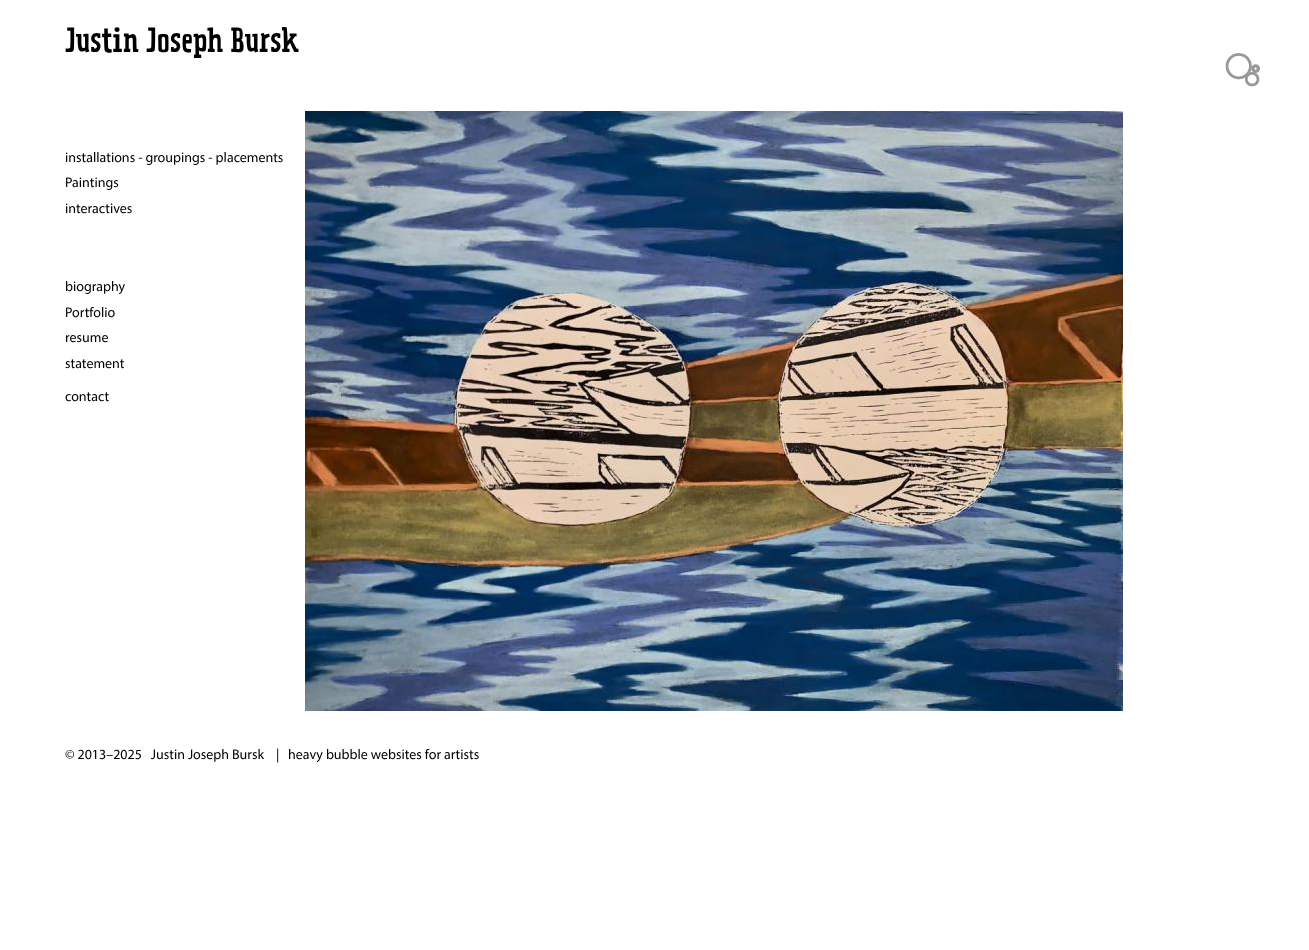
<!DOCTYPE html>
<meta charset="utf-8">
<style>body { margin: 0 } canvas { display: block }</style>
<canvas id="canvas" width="1309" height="950"></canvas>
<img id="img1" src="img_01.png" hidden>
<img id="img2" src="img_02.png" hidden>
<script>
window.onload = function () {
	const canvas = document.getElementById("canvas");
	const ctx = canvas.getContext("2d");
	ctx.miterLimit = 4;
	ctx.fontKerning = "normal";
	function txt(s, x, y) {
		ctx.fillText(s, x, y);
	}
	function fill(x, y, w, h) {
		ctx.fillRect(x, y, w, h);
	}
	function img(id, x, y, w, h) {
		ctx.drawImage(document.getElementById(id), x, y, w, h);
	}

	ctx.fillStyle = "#FFFFFF";
	fill(0, 0, 1309, 950);
	img("img1", 1225, 53, 35, 34);
	img("img2", 305, 111, 818, 600);
	ctx.font = "30.75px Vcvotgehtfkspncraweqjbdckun";
	ctx.fillStyle = "#000000";
	txt("Justin Joseph Bursk", 65, 52);
	ctx.font = "14px Myriad";
	txt("installations - groupings - placements", 65, 162);
	txt("Paintings", 65, 187);
	txt("interactives", 65, 213);
	txt("biography", 65, 291);
	txt("Portfolio", 65, 317);
	txt("resume", 65, 342);
	txt("statement", 65, 368);
	txt("contact", 65, 401);
	txt("© 2013–2025   Justin Joseph Bursk    |", 65, 759);
	txt("heavy bubble websites for artists", 288, 759);
};
</script>
